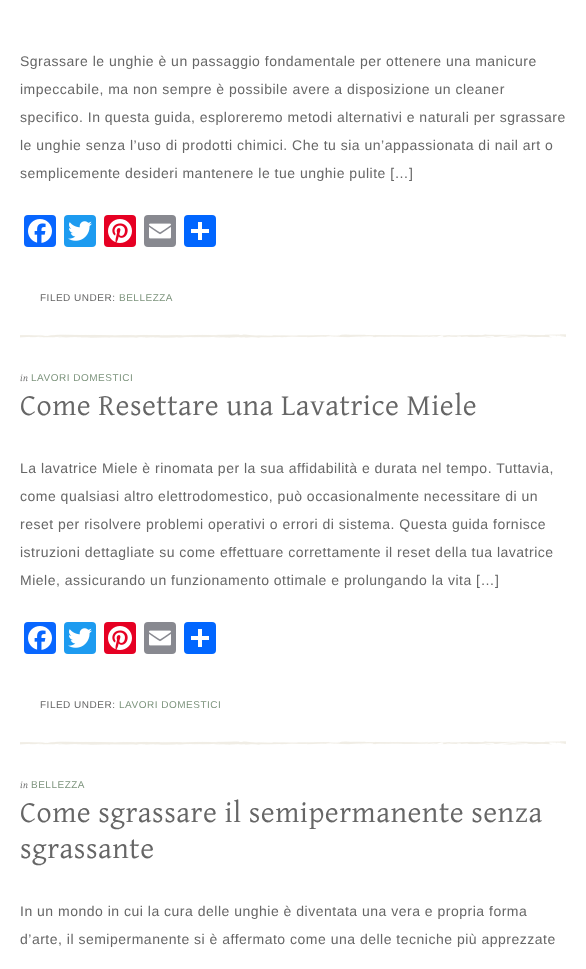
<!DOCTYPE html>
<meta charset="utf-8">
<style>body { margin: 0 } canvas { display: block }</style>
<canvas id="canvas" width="586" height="969"></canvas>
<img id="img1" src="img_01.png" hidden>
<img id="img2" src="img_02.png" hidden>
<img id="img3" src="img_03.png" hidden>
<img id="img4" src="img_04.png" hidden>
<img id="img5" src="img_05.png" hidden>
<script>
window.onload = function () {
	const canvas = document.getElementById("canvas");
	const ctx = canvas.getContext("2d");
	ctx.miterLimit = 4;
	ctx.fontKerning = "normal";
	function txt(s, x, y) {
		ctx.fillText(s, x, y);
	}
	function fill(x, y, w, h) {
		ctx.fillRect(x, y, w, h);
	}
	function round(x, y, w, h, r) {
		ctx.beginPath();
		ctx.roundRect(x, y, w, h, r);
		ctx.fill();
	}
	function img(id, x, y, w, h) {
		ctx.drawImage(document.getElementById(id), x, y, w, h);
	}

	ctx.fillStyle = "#FFFFFF";
	fill(0, 0, 586, 969);
	ctx.fillStyle = "#0866FF";
	round(24, 215, 32, 32, 4);
	img("img1", 28, 219, 24, 24);
	ctx.fillStyle = "#1D9BF0";
	round(64, 215, 32, 32, 4);
	img("img2", 68, 221, 24, 20);
	ctx.fillStyle = "#E60023";
	round(104, 215, 32, 32, 4);
	img("img3", 108, 219, 24, 24);
	ctx.fillStyle = "#888990";
	round(144, 215, 32, 32, 4);
	img("img4", 149, 223, 22, 16);
	ctx.fillStyle = "#0166FF";
	round(184, 215, 32, 32, 4);
	ctx.fillStyle = "#FFFFFF";
	fill(198, 222, 4, 18);
	fill(191, 229, 18, 4);
	img("img5", 20, 334, 546, 4);
	ctx.fillStyle = "#0866FF";
	round(24, 622, 32, 32, 4);
	img("img1", 28, 626, 24, 24);
	ctx.fillStyle = "#1D9BF0";
	round(64, 622, 32, 32, 4);
	img("img2", 68, 628, 24, 20);
	ctx.fillStyle = "#E60023";
	round(104, 622, 32, 32, 4);
	img("img3", 108, 626, 24, 24);
	ctx.fillStyle = "#888990";
	round(144, 622, 32, 32, 4);
	img("img4", 149, 630, 22, 16);
	ctx.fillStyle = "#0166FF";
	round(184, 622, 32, 32, 4);
	ctx.fillStyle = "#FFFFFF";
	fill(198, 629, 4, 18);
	fill(191, 636, 18, 4);
	img("img5", 20, 741, 546, 4);
	ctx.letterSpacing = "0.5px";
	ctx.font = "14px Arimo";
	ctx.fillStyle = "#666666";
	txt("Sgrassare le unghie è un passaggio fondamentale per ottenere una manicure", 20, 66);
	txt("impeccabile, ma non sempre è possibile avere a disposizione un cleaner", 20, 94);
	txt("specifico. In questa guida, esploreremo metodi alternativi e naturali per sgrassare", 20, 122);
	txt("le unghie senza l’uso di prodotti chimici. Che tu sia un’appassionata di nail art o", 20, 150);
	txt("semplicemente desideri mantenere le tue unghie pulite […]", 20, 178);
	ctx.font = "10px Arimo";
	txt("FILED UNDER:", 40, 301);
	ctx.fillStyle = "#7D947D";
	txt("BELLEZZA", 119, 301);
	ctx.font = "italic 10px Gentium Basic";
	ctx.fillStyle = "#666666";
	txt("in", 20, 381);
	ctx.font = "10px Arimo";
	ctx.fillStyle = "#7D947D";
	txt("LAVORI DOMESTICI", 31, 381);
	ctx.font = "30px Gentium Basic";
	ctx.fillStyle = "#666666";
	txt("Come Resettare una Lavatrice Miele", 20, 415);
	ctx.font = "14px Arimo";
	txt("La lavatrice Miele è rinomata per la sua affidabilità e durata nel tempo. Tuttavia,", 20, 473);
	txt("come qualsiasi altro elettrodomestico, può occasionalmente necessitare di un", 20, 501);
	txt("reset per risolvere problemi operativi o errori di sistema. Questa guida fornisce", 20, 529);
	txt("istruzioni dettagliate su come effettuare correttamente il reset della tua lavatrice", 20, 557);
	txt("Miele, assicurando un funzionamento ottimale e prolungando la vita […]", 20, 585);
	ctx.font = "10px Arimo";
	txt("FILED UNDER:", 40, 708);
	ctx.fillStyle = "#7D947D";
	txt("LAVORI DOMESTICI", 119, 708);
	ctx.font = "italic 10px Gentium Basic";
	ctx.fillStyle = "#666666";
	txt("in", 20, 788);
	ctx.font = "10px Arimo";
	ctx.fillStyle = "#7D947D";
	txt("BELLEZZA", 31, 788);
	ctx.font = "30px Gentium Basic";
	ctx.fillStyle = "#666666";
	txt("Come sgrassare il semipermanente senza", 20, 822);
	txt("sgrassante", 20, 858);
	ctx.font = "14px Arimo";
	txt("In un mondo in cui la cura delle unghie è diventata una vera e propria forma", 20, 916);
	txt("d’arte, il semipermanente si è affermato come una delle tecniche più apprezzate", 20, 944);
};
</script>
